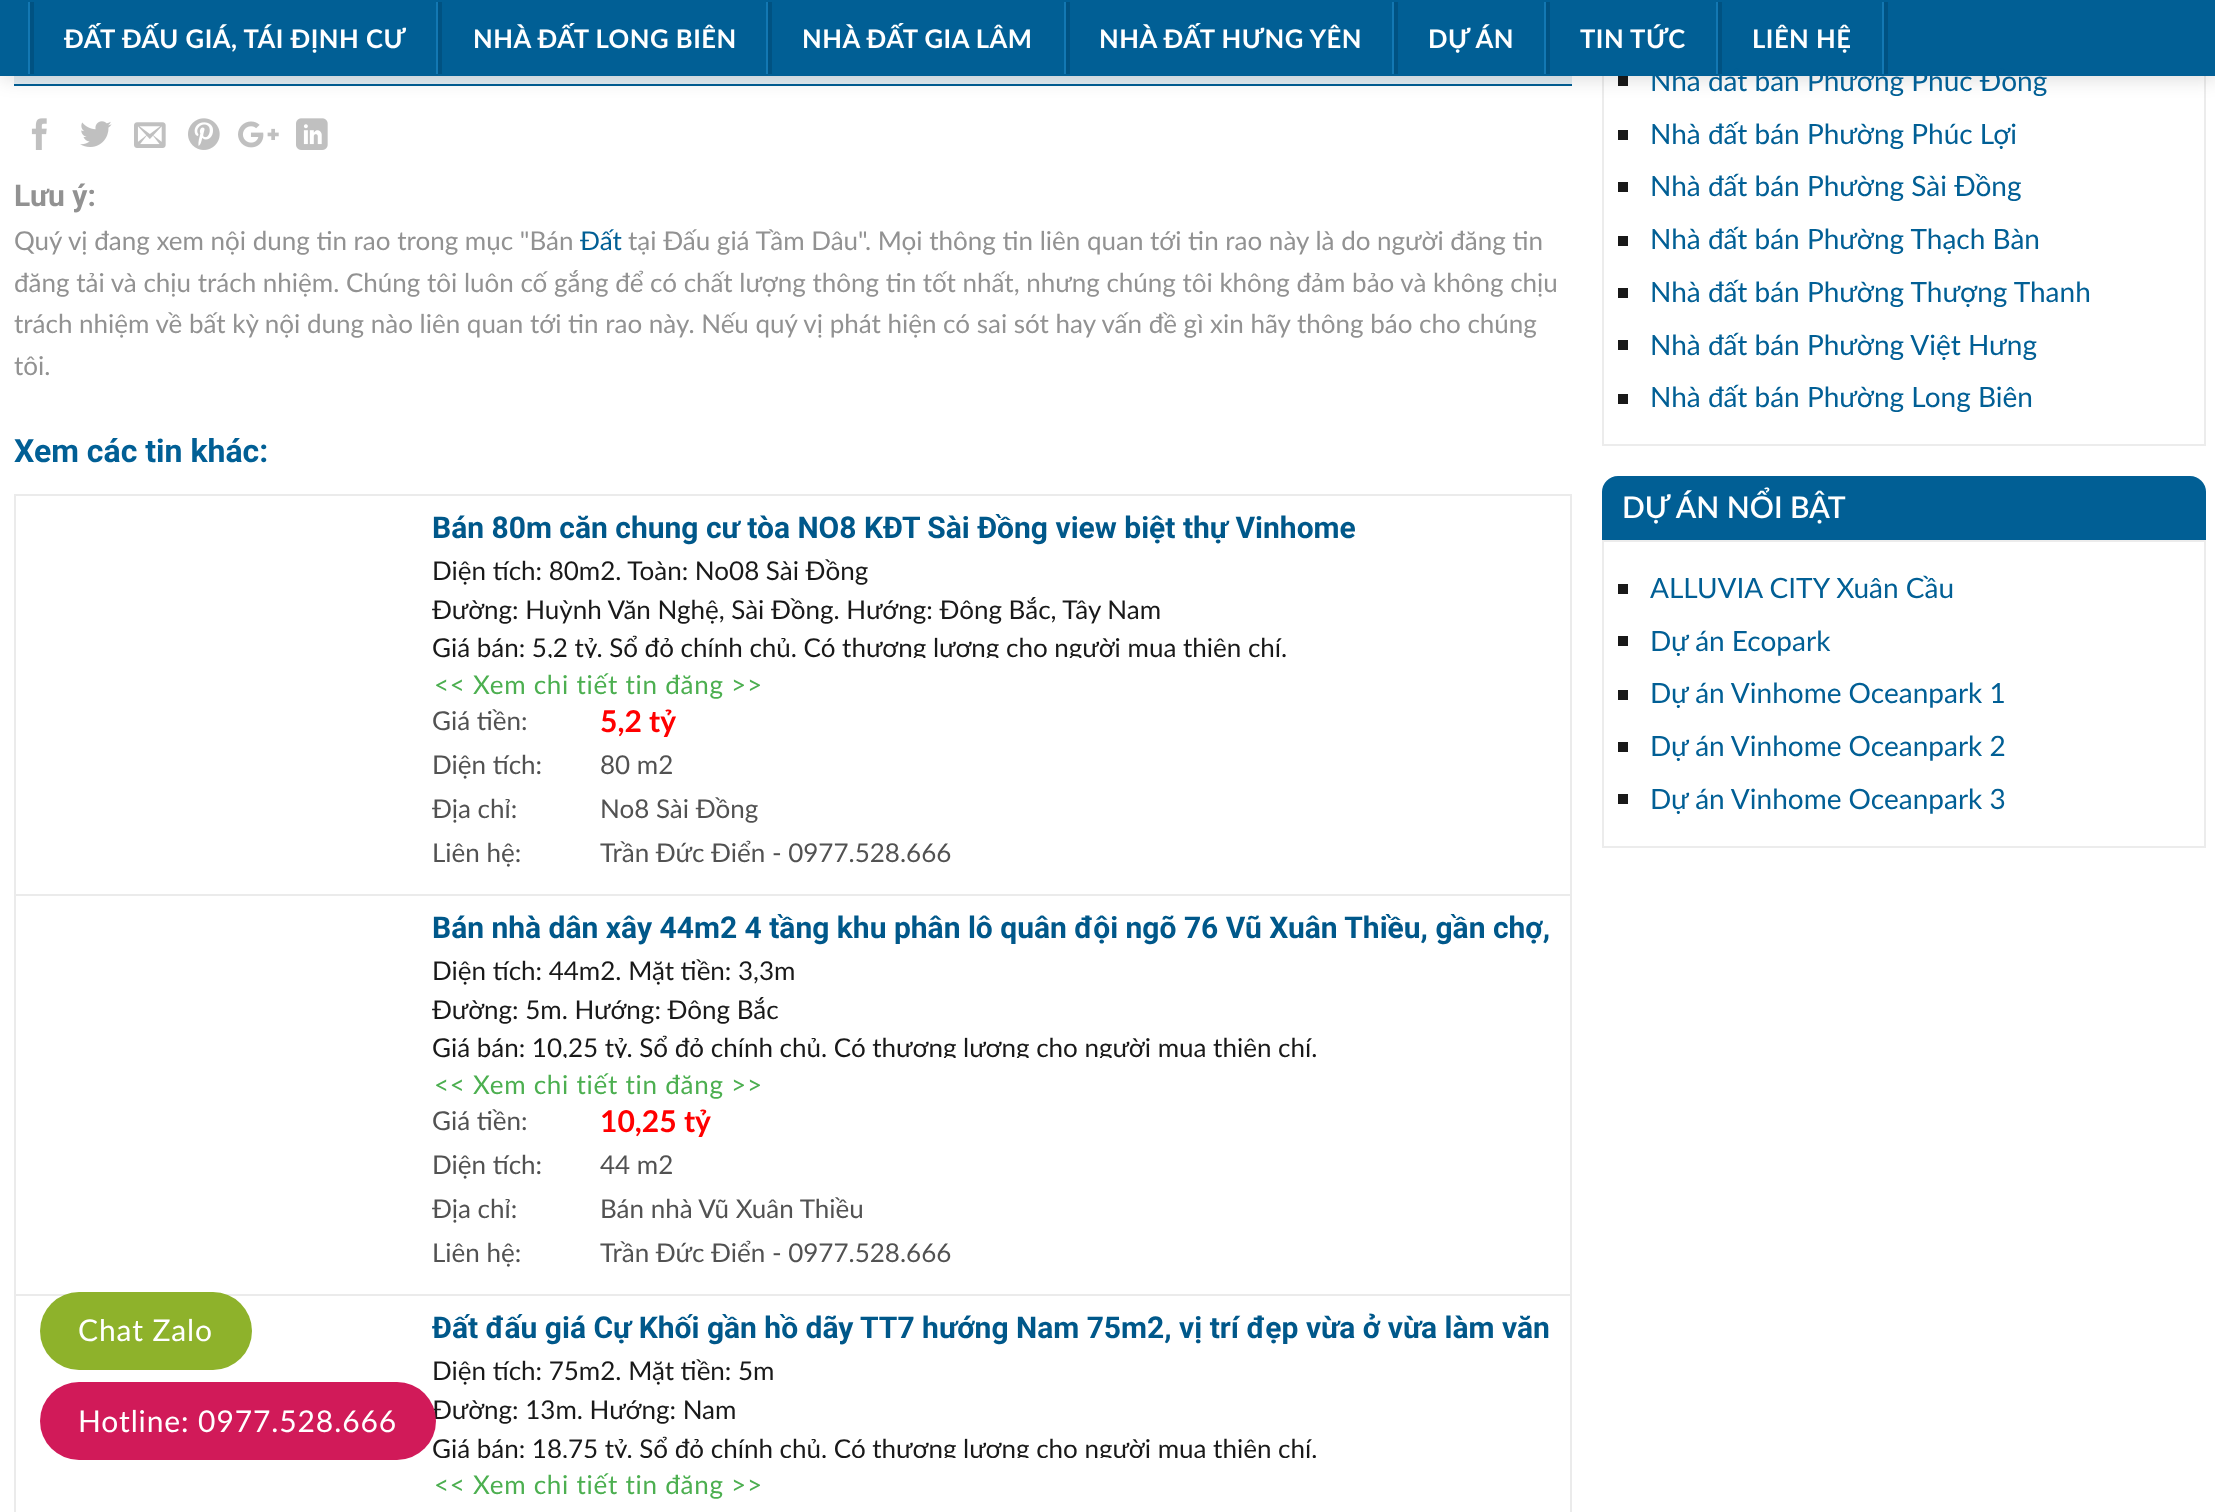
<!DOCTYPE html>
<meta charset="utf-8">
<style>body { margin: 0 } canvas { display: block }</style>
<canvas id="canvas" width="2215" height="1512"></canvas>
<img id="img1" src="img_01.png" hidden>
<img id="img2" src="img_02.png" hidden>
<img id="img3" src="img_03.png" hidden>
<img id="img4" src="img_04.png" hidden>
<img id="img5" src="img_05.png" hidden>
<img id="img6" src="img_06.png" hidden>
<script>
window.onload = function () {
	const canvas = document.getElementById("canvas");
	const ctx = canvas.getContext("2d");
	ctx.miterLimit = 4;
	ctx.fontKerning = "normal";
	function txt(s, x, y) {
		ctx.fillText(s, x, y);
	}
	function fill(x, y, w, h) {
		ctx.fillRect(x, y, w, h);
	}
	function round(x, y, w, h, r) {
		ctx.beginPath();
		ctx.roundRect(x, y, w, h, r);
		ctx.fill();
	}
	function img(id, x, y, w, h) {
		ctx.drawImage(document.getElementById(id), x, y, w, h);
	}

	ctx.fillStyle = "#FFFFFF";
	fill(0, 0, 2215, 1512);
	ctx.fillStyle = "#E3EDF3";
	fill(14, 76, 1558, 8);
	ctx.fillStyle = "#015F95";
	fill(14, 84, 1558, 2);
	ctx.strokeStyle = "#ECECEC";
	ctx.lineWidth = 2;
	ctx.strokeRect(1603, -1, 602, 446);
	ctx.fillStyle = "#191919";
	fill(1618, 76, 10, 10);
	ctx.fillStyle = "rgba(0, 0, 0, 0.15)";
	ctx.filter = "blur(10px)";
	ctx.beginPath();
	ctx.rect(2, 2, 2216, 76);
	ctx.fill();
	ctx.filter = "none";
	ctx.fillStyle = "#015F95";
	fill(0, 0, 2215, 76);
	ctx.fillStyle = "#1378B3";
	fill(28, 2, 2, 72);
	fill(436, 2, 2, 72);
	ctx.fillStyle = "#005282";
	fill(30, 2, 4, 72);
	ctx.fillStyle = "#1378B3";
	fill(766, 2, 2, 72);
	ctx.fillStyle = "#005282";
	fill(438, 2, 4, 72);
	ctx.fillStyle = "#1378B3";
	fill(1064, 2, 2, 72);
	ctx.fillStyle = "#005282";
	fill(768, 2, 4, 72);
	ctx.fillStyle = "#1378B3";
	fill(1392, 2, 2, 72);
	ctx.fillStyle = "#005282";
	fill(1066, 2, 4, 72);
	ctx.fillStyle = "#1378B3";
	fill(1544, 2, 2, 72);
	ctx.fillStyle = "#005282";
	fill(1394, 2, 4, 72);
	fill(1546, 2, 4, 72);
	img("img1", 31, 118, 16, 32);
	img("img2", 80, 121, 32, 26);
	img("img3", 134, 122, 32, 26);
	img("img4", 188, 118, 32, 32);
	img("img5", 238, 121, 41, 27);
	img("img6", 296, 118, 32, 32);
	ctx.fillStyle = "#EBEBEB";
	fill(14, 494, 1558, 2);
	fill(1570, 494, 2, 400);
	fill(14, 494, 2, 400);
	fill(14, 894, 1558, 2);
	fill(1570, 894, 2, 400);
	fill(14, 894, 2, 400);
	fill(14, 1294, 1558, 2);
	fill(1570, 1294, 2, 218);
	fill(14, 1294, 2, 218);
	ctx.fillStyle = "#191919";
	fill(1618, 130, 10, 10);
	fill(1618, 182, 10, 10);
	fill(1618, 236, 10, 10);
	fill(1618, 288, 10, 10);
	fill(1618, 340, 10, 10);
	fill(1618, 394, 10, 10);
	ctx.fillStyle = "#015F95";
	ctx.beginPath();
	ctx.roundRect(1602, 476, 604, 64, [16, 16, 0, 0]);
	ctx.fill();
	ctx.strokeRect(1603, 541, 602, 306);
	ctx.fillStyle = "#191919";
	fill(1618, 584, 10, 10);
	fill(1618, 636, 10, 10);
	fill(1618, 690, 10, 10);
	fill(1618, 742, 10, 10);
	fill(1618, 794, 10, 10);
	ctx.fillStyle = "#8EB22B";
	round(40, 1292, 212, 78, 39);
	ctx.letterSpacing = "0.5px";
	ctx.font = "bold 25.6px Lato";
	ctx.fillStyle = "#FFFFFF";
	txt("ĐẤT ĐẤU GIÁ, TÁI ĐỊNH CƯ", 64, 48);
	txt("NHÀ ĐẤT LONG BIÊN", 473, 48);
	txt("NHÀ ĐẤT GIA LÂM", 802, 48);
	txt("NHÀ ĐẤT HƯNG YÊN", 1099, 48);
	txt("DỰ ÁN", 1428, 48);
	txt("TIN TỨC", 1580, 48);
	txt("LIÊN HỆ", 1752, 48);
	ctx.letterSpacing = "0px";
	ctx.font = "bold 30px Roboto";
	ctx.fillStyle = "#929292";
	txt("Lưu ý:", 14, 206);
	ctx.font = "26px Lato";
	txt("Quý vị đang xem nội dung tin rao trong mục \"Bán", 14, 250);
	ctx.fillStyle = "#015F95";
	txt("Đất", 580, 250);
	ctx.fillStyle = "#929292";
	txt("tại Đấu giá Tầm Dâu\". Mọi thông tin liên quan tới tin rao này là do người đăng tin", 628, 250);
	txt("đăng tải và chịu trách nhiệm. Chúng tôi luôn cố gắng để có chất lượng thông tin tốt nhất, nhưng chúng tôi không đảm bảo và không chịu", 14, 292);
	txt("trách nhiệm về bất kỳ nội dung nào liên quan tới tin rao này. Nếu quý vị phát hiện có sai sót hay vấn đề gì xin hãy thông báo cho chúng", 14, 333);
	txt("tôi.", 14, 375);
	ctx.font = "bold 32px Roboto";
	ctx.fillStyle = "#015F95";
	txt("Xem các tin khác:", 14, 462);
	ctx.font = "bold 30px Roboto";
	ctx.fillStyle = "#00588A";
	txt("Bán 80m căn chung cư tòa NO8 KĐT Sài Đồng view biệt thự Vinhome", 432, 538);
	ctx.font = "26px Lato";
	ctx.fillStyle = "#191919";
	txt("Diện tích: 80m2. Toàn: No08 Sài Đồng", 432, 580);
	txt("Đường: Huỳnh Văn Nghệ, Sài Đồng. Hướng: Đông Bắc, Tây Nam", 432, 619);
	ctx.save();
	ctx.beginPath();
	ctx.rect(432, 550, 1124, 108);
	ctx.clip();
	txt("Giá bán: 5,2 tỷ. Sổ đỏ chính chủ. Có thương lượng cho người mua thiện chí.", 432, 657);
	ctx.restore();
	ctx.letterSpacing = "0.75px";
	ctx.fillStyle = "#4CAF50";
	txt("<< Xem chi tiết tin đăng >>", 434, 694);
	ctx.letterSpacing = "0px";
	ctx.fillStyle = "#525252";
	txt("Giá tiền:", 432, 730);
	ctx.font = "bold 30px Lato";
	ctx.fillStyle = "#FF0000";
	txt("5,2 tỷ", 600, 732);
	ctx.font = "26px Lato";
	ctx.fillStyle = "#525252";
	txt("Diện tích:", 432, 774);
	txt("80 m2", 600, 774);
	txt("Địa chỉ:", 432, 818);
	txt("No8 Sài Đồng", 600, 818);
	txt("Liên hệ:", 432, 862);
	txt("Trần Đức Điển - 0977.528.666", 600, 862);
	ctx.font = "bold 30px Roboto";
	ctx.fillStyle = "#00588A";
	txt("Bán nhà dân xây 44m2 4 tầng khu phân lô quân đội ngõ 76 Vũ Xuân Thiều, gần chợ,", 432, 938);
	ctx.font = "26px Lato";
	ctx.fillStyle = "#191919";
	txt("Diện tích: 44m2. Mặt tiền: 3,3m", 432, 980);
	txt("Đường: 5m. Hướng: Đông Bắc", 432, 1019);
	ctx.save();
	ctx.beginPath();
	ctx.rect(432, 950, 1124, 108);
	ctx.clip();
	txt("Giá bán: 10,25 tỷ. Sổ đỏ chính chủ. Có thương lượng cho người mua thiện chí.", 432, 1057);
	ctx.restore();
	ctx.letterSpacing = "0.75px";
	ctx.fillStyle = "#4CAF50";
	txt("<< Xem chi tiết tin đăng >>", 434, 1094);
	ctx.letterSpacing = "0px";
	ctx.fillStyle = "#525252";
	txt("Giá tiền:", 432, 1130);
	ctx.font = "bold 30px Lato";
	ctx.fillStyle = "#FF0000";
	txt("10,25 tỷ", 600, 1132);
	ctx.font = "26px Lato";
	ctx.fillStyle = "#525252";
	txt("Diện tích:", 432, 1174);
	txt("44 m2", 600, 1174);
	txt("Địa chỉ:", 432, 1218);
	txt("Bán nhà Vũ Xuân Thiều", 600, 1218);
	txt("Liên hệ:", 432, 1262);
	txt("Trần Đức Điển - 0977.528.666", 600, 1262);
	ctx.save();
	ctx.beginPath();
	ctx.rect(432, 1310, 1124, 40);
	ctx.clip();
	ctx.font = "bold 30px Roboto";
	ctx.fillStyle = "#00588A";
	txt("Đất đấu giá Cự Khối gần hồ dãy TT7 hướng Nam 75m2, vị trí đẹp vừa ở vừa làm văn", 432, 1338);
	ctx.restore();
	ctx.fillStyle = "#191919";
	txt("Diện tích: 75m2. Mặt tiền: 5m", 432, 1380);
	txt("Đường: 13m. Hướng: Nam", 432, 1419);
	ctx.save();
	ctx.beginPath();
	ctx.rect(432, 1350, 1124, 108);
	ctx.clip();
	txt("Giá bán: 18,75 tỷ. Sổ đỏ chính chủ. Có thương lượng cho người mua thiện chí.", 432, 1458);
	ctx.restore();
	ctx.letterSpacing = "0.75px";
	ctx.fillStyle = "#4CAF50";
	txt("<< Xem chi tiết tin đăng >>", 434, 1494);
	ctx.letterSpacing = "0px";
	ctx.font = "28px Lato";
	ctx.fillStyle = "#015F95";
	txt("Nhà đất bán Phường Phúc Đồng", 1650, 91);
	ctx.fillStyle = "#005282";
	fill(1718, 2, 4, 72);
	ctx.fillStyle = "#1378B3";
	fill(1882, 2, 2, 72);
	fill(1716, 2, 2, 72);
	ctx.fillStyle = "#005282";
	fill(1884, 2, 4, 72);
	ctx.fillStyle = "#015F95";
	txt("Nhà đất bán Phường Phúc Lợi", 1650, 144);
	txt("Nhà đất bán Phường Sài Đồng", 1650, 196);
	txt("Nhà đất bán Phường Thạch Bàn", 1650, 249);
	txt("Nhà đất bán Phường Thượng Thanh", 1650, 302);
	txt("Nhà đất bán Phường Việt Hưng", 1650, 355);
	txt("Nhà đất bán Phường Long Biên", 1650, 407);
	ctx.font = "600 30px Lato";
	ctx.fillStyle = "#FFFFFF";
	txt("DỰ ÁN NỔI BẬT", 1622, 518);
	ctx.font = "28px Lato";
	ctx.fillStyle = "#015F95";
	txt("ALLUVIA CITY Xuân Cầu", 1650, 598);
	txt("Dự án Ecopark", 1650, 651);
	txt("Dự án Vinhome Oceanpark 1", 1650, 703);
	txt("Dự án Vinhome Oceanpark 2", 1650, 756);
	txt("Dự án Vinhome Oceanpark 3", 1650, 809);
	ctx.letterSpacing = "0.9px";
	ctx.font = "30px Lato";
	ctx.fillStyle = "#FFFFFF";
	txt("Chat Zalo", 78, 1341);
	ctx.fillStyle = "#D11A59";
	round(40, 1382, 396, 78, 39);
	ctx.fillStyle = "#FFFFFF";
	txt("Hotline: 0977.528.666", 78, 1432);
};
</script>
